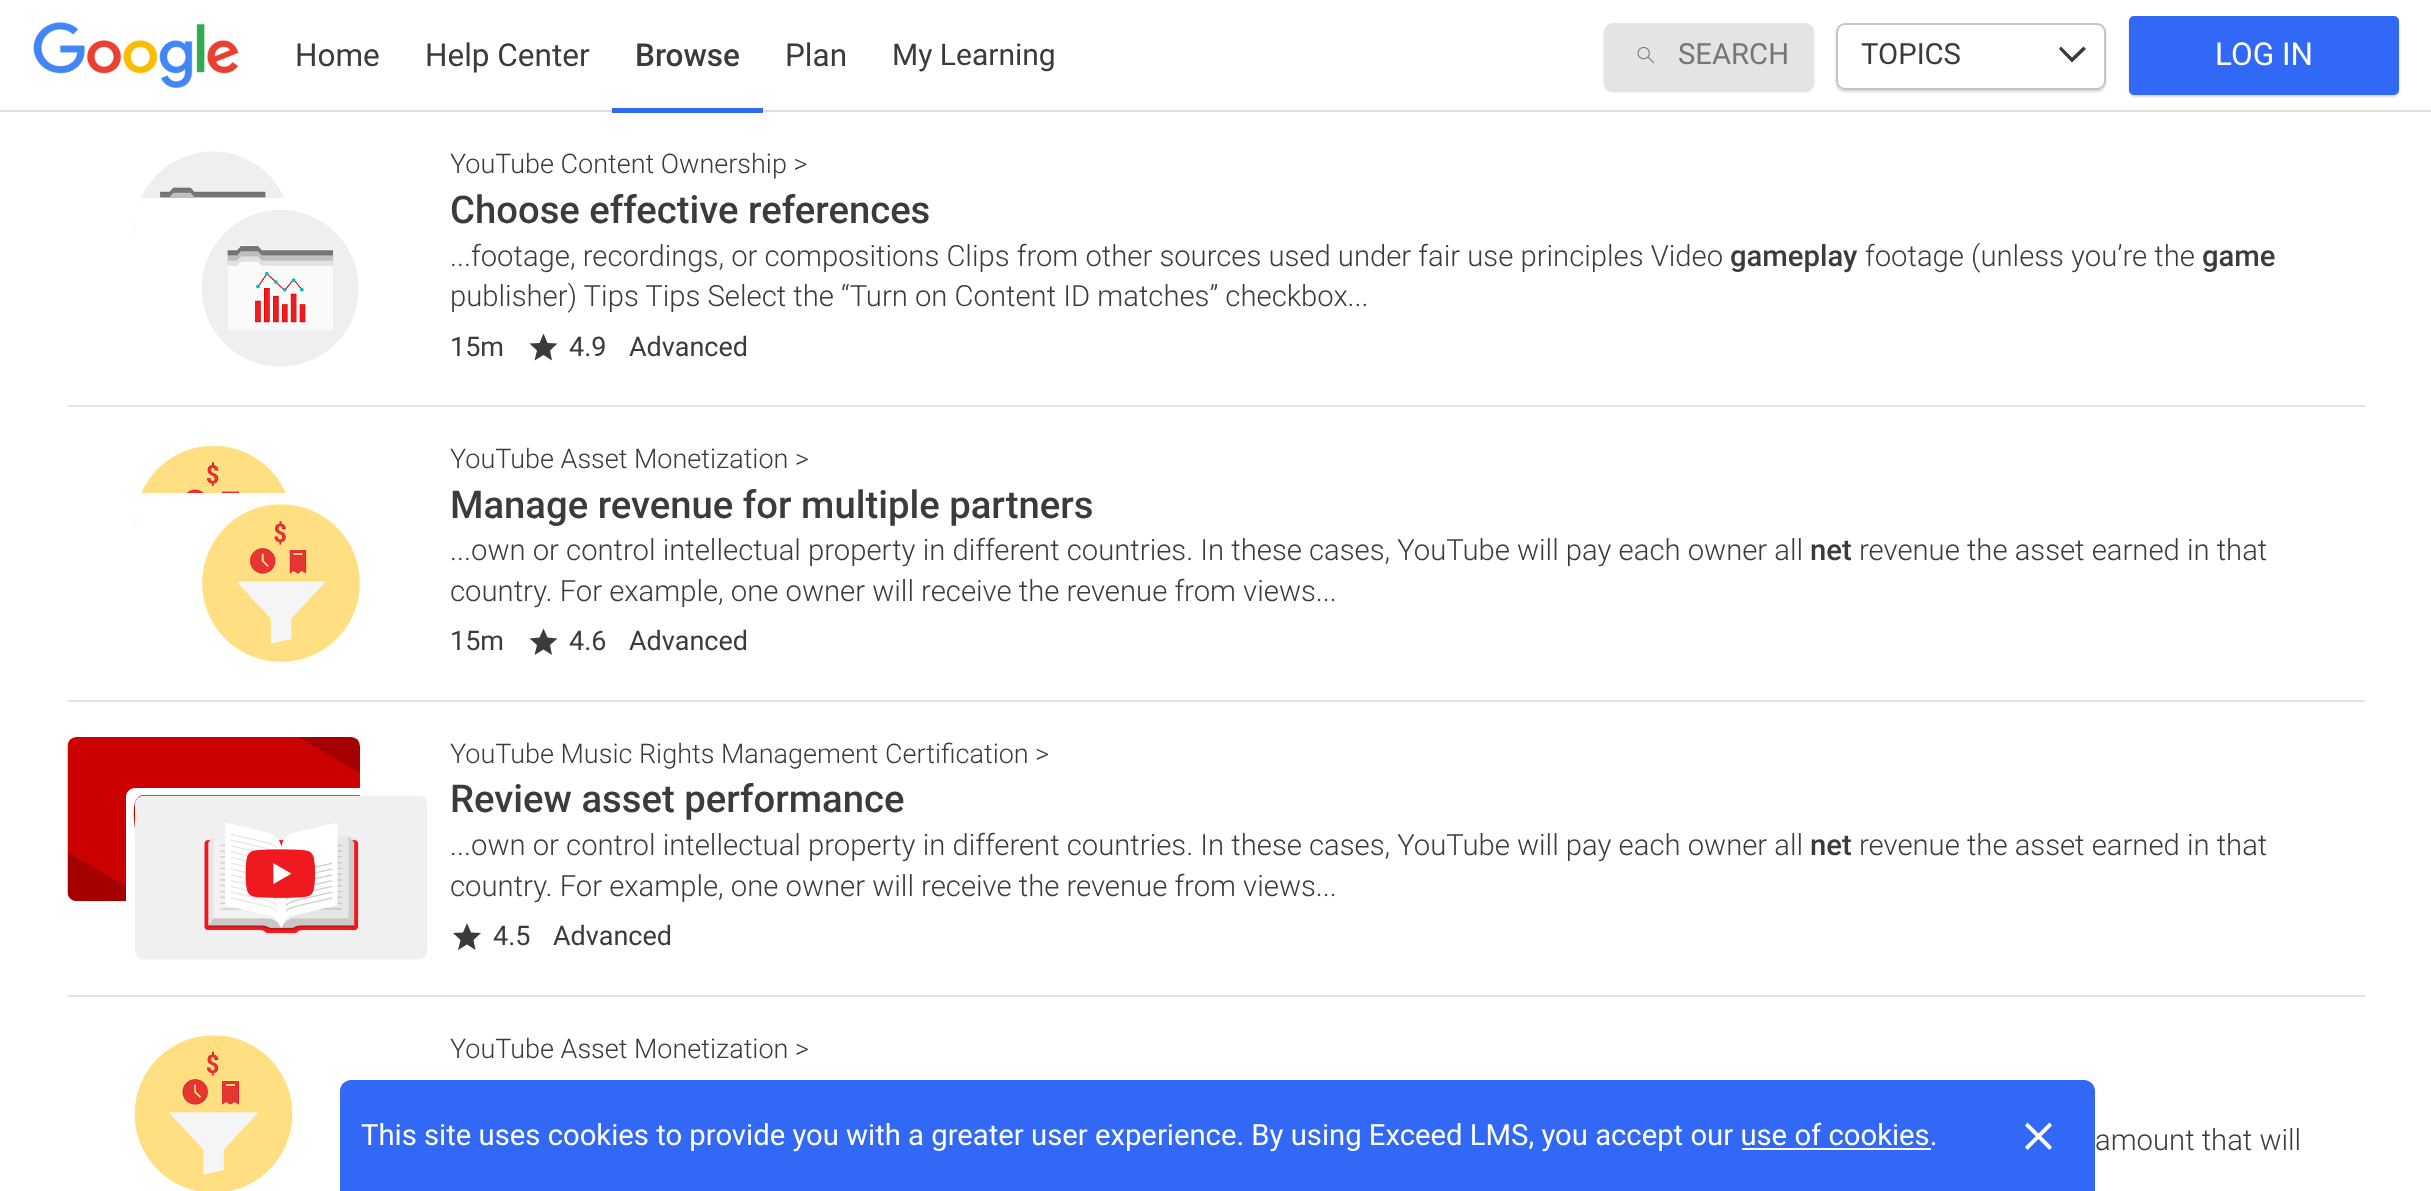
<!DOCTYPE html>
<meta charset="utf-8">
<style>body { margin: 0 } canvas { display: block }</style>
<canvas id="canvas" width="2431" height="1191"></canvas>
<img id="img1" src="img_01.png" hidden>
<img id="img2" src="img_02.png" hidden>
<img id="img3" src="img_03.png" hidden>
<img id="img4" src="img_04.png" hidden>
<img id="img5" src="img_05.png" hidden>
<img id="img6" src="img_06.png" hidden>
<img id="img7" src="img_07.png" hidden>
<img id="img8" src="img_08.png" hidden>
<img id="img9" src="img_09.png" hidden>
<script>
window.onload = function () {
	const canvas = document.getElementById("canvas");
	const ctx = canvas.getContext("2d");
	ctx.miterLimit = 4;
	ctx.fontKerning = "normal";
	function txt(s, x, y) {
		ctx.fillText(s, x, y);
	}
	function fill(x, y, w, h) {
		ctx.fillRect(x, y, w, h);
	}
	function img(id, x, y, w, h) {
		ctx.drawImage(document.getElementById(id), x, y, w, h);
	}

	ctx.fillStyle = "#FFFFFF";
	fill(0, 0, 2431, 1191);
	ctx.fillStyle = "#DFDFDF";
	fill(0, 110, 2431, 2);
	img("img1", 33, 22, 206, 66);
	ctx.fillStyle = "#3168F6";
	fill(612, 108, 151, 5);
	ctx.fillStyle = "rgba(0, 0, 0, 0.15)";
	ctx.filter = "blur(1px)";
	ctx.beginPath();
	ctx.roundRect(1604, 25, 210, 67, 9);
	ctx.fill();
	ctx.filter = "none";
	ctx.fillStyle = "#E4E4E4";
	ctx.beginPath();
	ctx.roundRect(1605, 24, 208, 65, 8);
	ctx.fill();
	ctx.strokeStyle = "#E4E4E4";
	ctx.lineWidth = 2;
	ctx.stroke();
	img("img2", 1637, 47, 18, 17);
	ctx.save();
	ctx.beginPath();
	ctx.moveTo(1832, 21);
	ctx.lineTo(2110, 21);
	ctx.lineTo(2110, 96);
	ctx.lineTo(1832, 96);
	ctx.closePath();
	ctx.moveTo(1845, 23);
	ctx.lineTo(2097, 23);
	ctx.bezierCurveTo(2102, 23, 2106, 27, 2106, 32);
	ctx.lineTo(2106, 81);
	ctx.bezierCurveTo(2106, 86, 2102, 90, 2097, 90);
	ctx.lineTo(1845, 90);
	ctx.bezierCurveTo(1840, 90, 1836, 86, 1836, 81);
	ctx.lineTo(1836, 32);
	ctx.bezierCurveTo(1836, 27, 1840, 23, 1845, 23);
	ctx.closePath();
	ctx.clip("evenodd");
	ctx.fillStyle = "rgba(0, 0, 0, 0.15)";
	ctx.filter = "blur(1px)";
	ctx.beginPath();
	ctx.roundRect(1836, 25, 270, 67, 9);
	ctx.fill();
	ctx.filter = "none";
	ctx.restore();
	ctx.beginPath();
	ctx.roundRect(1837, 24, 268, 65, 8);
	ctx.strokeStyle = "rgba(57, 59, 61, 0.3)";
	ctx.stroke();
	ctx.fillStyle = "#393B3D";
	ctx.beginPath();
	ctx.moveTo(2061, 46.5);
	ctx.lineTo(2072, 57.5);
	ctx.lineTo(2083.5, 46.5);
	ctx.lineTo(2086, 49);
	ctx.lineTo(2072, 62.5);
	ctx.lineTo(2059, 49);
	ctx.closePath();
	ctx.fill();
	ctx.fillStyle = "rgba(0, 0, 0, 0.15)";
	ctx.filter = "blur(1px)";
	ctx.beginPath();
	ctx.roundRect(2129, 18, 270, 79, 5);
	ctx.fill();
	ctx.filter = "none";
	ctx.fillStyle = "#3168F6";
	ctx.beginPath();
	ctx.roundRect(2130, 17, 268, 77, 4);
	ctx.fill();
	ctx.strokeStyle = "#3168F6";
	ctx.stroke();
	ctx.fillStyle = "#E4E4E4";
	fill(68, 405, 2297, 2);
	img("img3", 134, 151, 157, 88);
	ctx.fillStyle = "#FFFFFF";
	ctx.beginPath();
	ctx.moveTo(135, 198);
	ctx.bezierCurveTo(130, 198, 126, 202, 126, 207);
	ctx.lineTo(126, 353);
	ctx.bezierCurveTo(126, 358, 130, 362, 135, 362);
	ctx.lineTo(135, 239);
	ctx.bezierCurveTo(135, 235, 129, 206, 144, 206);
	ctx.lineTo(419, 206);
	ctx.bezierCurveTo(418, 201, 415, 198, 410, 198);
	ctx.closePath();
	ctx.fill();
	img("img4", 135, 206, 224, 161);
	ctx.fillStyle = "#393B3D";
	ctx.beginPath();
	ctx.moveTo(543.5, 355);
	ctx.lineTo(552, 360.5);
	ctx.lineTo(550, 350.5);
	ctx.lineTo(557.5, 343.5);
	ctx.lineTo(547.5, 343);
	ctx.lineTo(543.5, 333.5);
	ctx.lineTo(539.5, 343);
	ctx.lineTo(529.5, 343.5);
	ctx.lineTo(537, 350.5);
	ctx.lineTo(534.5, 360.5);
	ctx.closePath();
	ctx.fill();
	ctx.fillStyle = "#E4E4E4";
	fill(68, 700, 2297, 2);
	img("img5", 134, 446, 159, 88);
	ctx.fillStyle = "#FFFFFF";
	ctx.beginPath();
	ctx.moveTo(135, 493);
	ctx.bezierCurveTo(130, 493, 126, 497, 126, 502);
	ctx.lineTo(126, 648);
	ctx.bezierCurveTo(126, 653, 130, 657, 135, 657);
	ctx.lineTo(135, 534);
	ctx.bezierCurveTo(135, 530, 129, 501, 144, 501);
	ctx.lineTo(419, 501);
	ctx.bezierCurveTo(418, 496, 415, 493, 410, 493);
	ctx.closePath();
	ctx.fill();
	img("img6", 135, 501, 225, 161);
	ctx.fillStyle = "#393B3D";
	ctx.beginPath();
	ctx.moveTo(543.5, 649.5);
	ctx.lineTo(552, 655);
	ctx.lineTo(550, 645);
	ctx.lineTo(557.5, 638.5);
	ctx.lineTo(547.5, 637.5);
	ctx.lineTo(543.5, 628.5);
	ctx.lineTo(539.5, 637.5);
	ctx.lineTo(529.5, 638.5);
	ctx.lineTo(537, 645);
	ctx.lineTo(534.5, 655);
	ctx.closePath();
	ctx.fill();
	ctx.fillStyle = "#E4E4E4";
	fill(68, 995, 2297, 2);
	img("img7", 67, 737, 293, 165);
	ctx.fillStyle = "#FFFFFF";
	ctx.beginPath();
	ctx.moveTo(135, 788);
	ctx.bezierCurveTo(130, 788, 126, 792, 126, 797);
	ctx.lineTo(126, 943);
	ctx.bezierCurveTo(126, 948, 130, 952, 135, 952);
	ctx.lineTo(135, 829);
	ctx.bezierCurveTo(135, 824, 129, 795, 144, 795);
	ctx.lineTo(419, 795);
	ctx.bezierCurveTo(418, 791, 414, 788, 410, 788);
	ctx.closePath();
	ctx.fill();
	img("img8", 135, 795, 293, 165);
	ctx.fillStyle = "#393B3D";
	ctx.beginPath();
	ctx.moveTo(467, 944.5);
	ctx.lineTo(475.5, 950);
	ctx.lineTo(473.5, 940);
	ctx.lineTo(481, 933);
	ctx.lineTo(471, 932.5);
	ctx.lineTo(467, 923);
	ctx.lineTo(463, 932.5);
	ctx.lineTo(453, 933);
	ctx.lineTo(460.5, 940);
	ctx.lineTo(458, 950);
	ctx.closePath();
	ctx.fill();
	img("img9", 134, 1035, 159, 156);
	ctx.fillStyle = "#3168F6";
	ctx.beginPath();
	ctx.moveTo(351, 1080);
	ctx.lineTo(2084, 1080);
	ctx.bezierCurveTo(2090, 1080, 2095, 1085, 2095, 1091);
	ctx.lineTo(2095, 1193);
	ctx.lineTo(340, 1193);
	ctx.lineTo(340, 1091);
	ctx.bezierCurveTo(340, 1085, 345, 1080, 351, 1080);
	ctx.closePath();
	ctx.fill();
	ctx.fillStyle = "#FFFFFF";
	fill(1742, 1148, 189, 2);
	ctx.beginPath();
	ctx.moveTo(2027.5, 1150);
	ctx.lineTo(2052, 1125.5);
	ctx.lineTo(2049.5, 1122.5);
	ctx.lineTo(2025, 1147);
	ctx.closePath();
	ctx.fill();
	ctx.beginPath();
	ctx.moveTo(2025, 1125.5);
	ctx.lineTo(2049.5, 1150);
	ctx.lineTo(2052, 1147);
	ctx.lineTo(2027.5, 1122.5);
	ctx.closePath();
	ctx.fill();
	ctx.font = "31.5px Roboto";
	ctx.fillStyle = "#393B3D";
	txt("Home", 295, 66);
	txt("Help Center", 425, 66);
	ctx.font = "500 31.5px Roboto";
	txt("Browse", 635, 66);
	ctx.font = "31.5px Roboto";
	txt("Plan", 785, 66);
	ctx.font = "30px Roboto";
	txt("My Learning", 892, 65);
	ctx.font = "29.25px Roboto";
	ctx.fillStyle = "#767676";
	txt("SEARCH", 1678, 64);
	ctx.fillStyle = "#393B3D";
	txt("TOPICS", 1861, 64);
	ctx.font = "31.5px Roboto";
	ctx.fillStyle = "#FFFFFF";
	txt("LOG IN", 2215, 65);
	ctx.font = "300 27px Roboto";
	ctx.fillStyle = "#393B3D";
	txt("YouTube Content Ownership >", 450, 173);
	ctx.font = "500 38.25px Roboto";
	txt("Choose effective references", 450, 223);
	ctx.font = "300 29.25px Roboto";
	txt("...footage, recordings, or compositions Clips from other sources used under fair use principles Video", 450, 266);
	ctx.font = "500 29.25px Roboto";
	txt("gameplay", 1730, 266);
	ctx.font = "300 29.25px Roboto";
	txt("footage (unless you’re the", 1865, 266);
	ctx.font = "500 29.25px Roboto";
	txt("game", 2202, 266);
	ctx.font = "300 29.25px Roboto";
	txt("publisher) Tips Tips Select the “Turn on Content ID matches” checkbox...", 450, 306);
	ctx.font = "27px Roboto";
	txt("15m", 450, 356);
	txt("4.9", 569, 356);
	txt("Advanced", 629, 356);
	ctx.font = "300 27px Roboto";
	txt("YouTube Asset Monetization >", 450, 468);
	ctx.font = "500 38.25px Roboto";
	txt("Manage revenue for multiple partners", 450, 518);
	ctx.font = "300 29.25px Roboto";
	txt("...own or control intellectual property in different countries. In these cases, YouTube will pay each owner all", 450, 560);
	ctx.font = "500 29.25px Roboto";
	txt("net", 1810, 560);
	ctx.font = "300 29.25px Roboto";
	txt("revenue the asset earned in that", 1859, 560);
	txt("country. For example, one owner will receive the revenue from views...", 450, 601);
	ctx.font = "27px Roboto";
	txt("15m", 450, 650);
	txt("4.6", 569, 650);
	txt("Advanced", 629, 650);
	ctx.font = "300 27px Roboto";
	txt("YouTube Music Rights Management Certification >", 450, 763);
	ctx.font = "500 38.25px Roboto";
	txt("Review asset performance", 450, 812);
	ctx.font = "300 29.25px Roboto";
	txt("...own or control intellectual property in different countries. In these cases, YouTube will pay each owner all", 450, 855);
	ctx.font = "500 29.25px Roboto";
	txt("net", 1810, 855);
	ctx.font = "300 29.25px Roboto";
	txt("revenue the asset earned in that", 1859, 855);
	txt("country. For example, one owner will receive the revenue from views...", 450, 896);
	ctx.font = "27px Roboto";
	txt("4.5", 493, 945);
	txt("Advanced", 553, 945);
	ctx.font = "300 27px Roboto";
	txt("YouTube Asset Monetization >", 450, 1058);
	ctx.font = "300 29.25px Roboto";
	txt("amount that will", 2095, 1150);
	ctx.font = "29.25px Roboto";
	ctx.fillStyle = "#FFFFFF";
	txt("This site uses cookies to provide you with a greater user experience. By using Exceed LMS, you accept our use of cookies.", 361, 1145);
};
</script>
